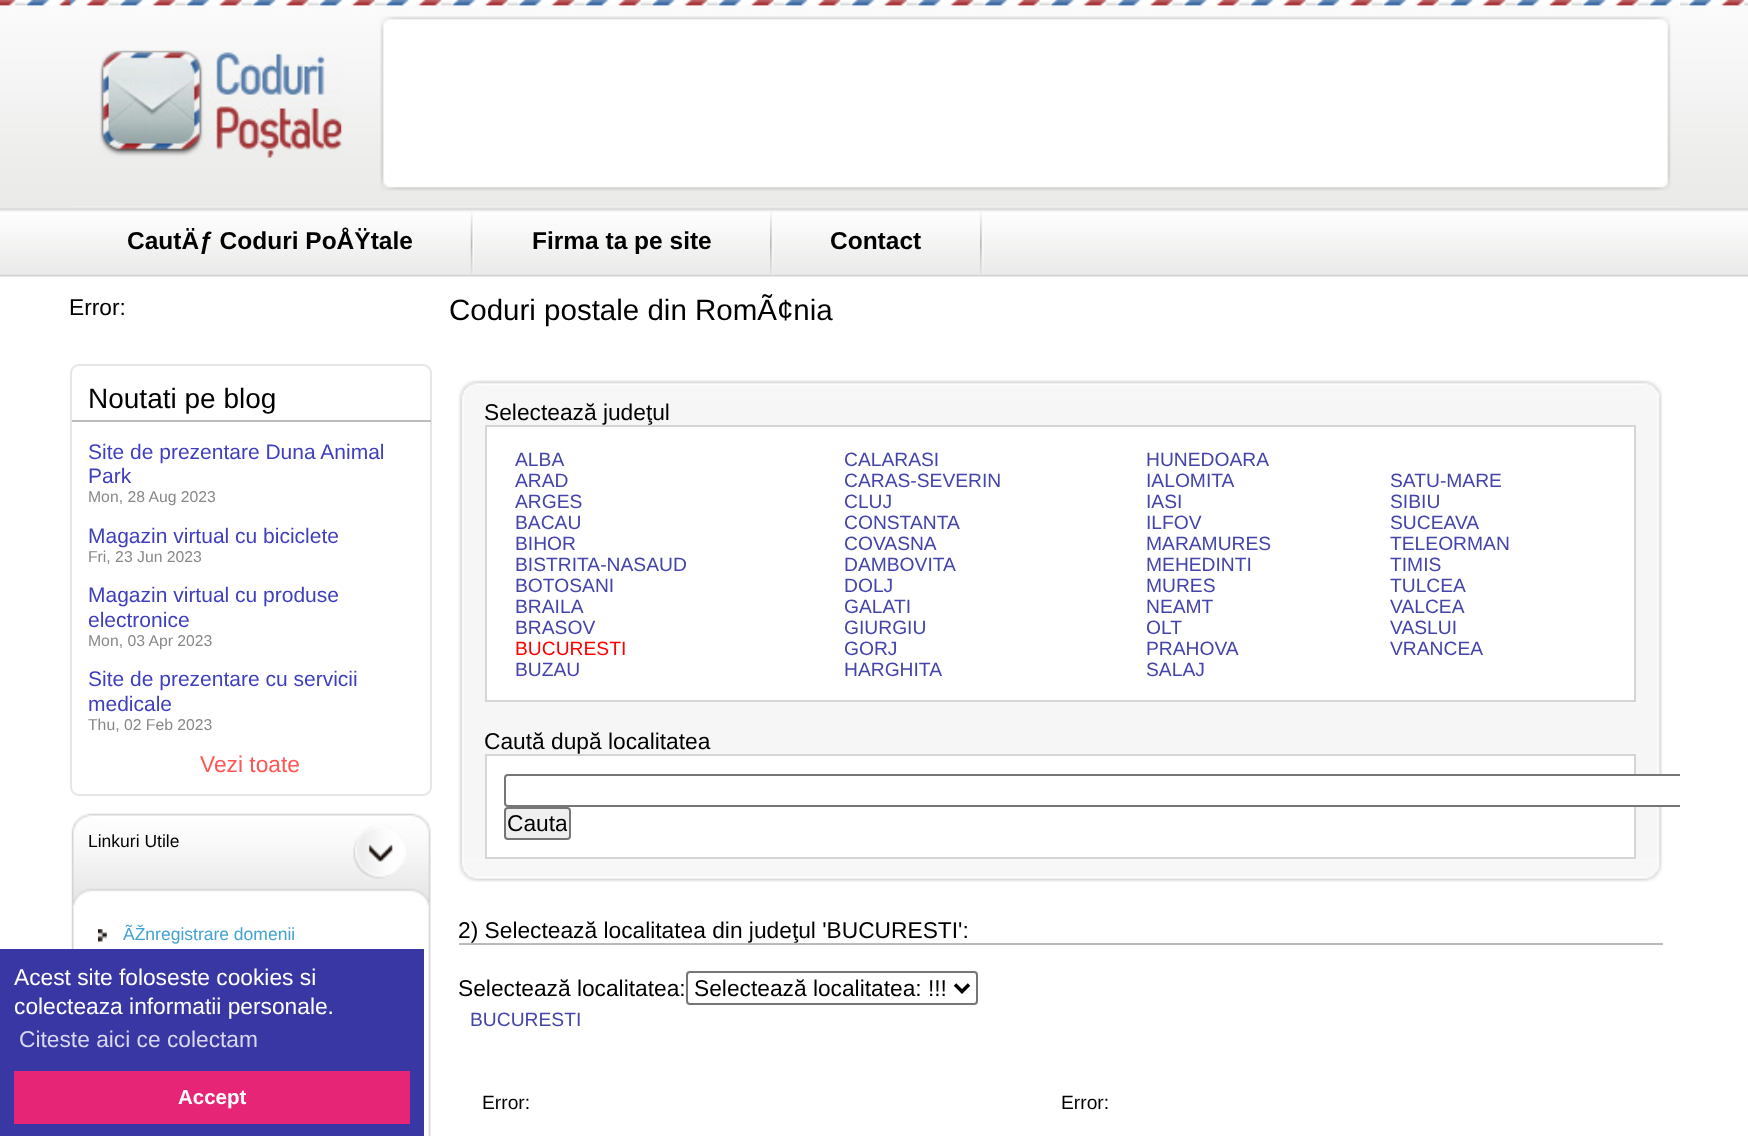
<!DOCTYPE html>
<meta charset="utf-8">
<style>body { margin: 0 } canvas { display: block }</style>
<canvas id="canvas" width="1748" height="1136"></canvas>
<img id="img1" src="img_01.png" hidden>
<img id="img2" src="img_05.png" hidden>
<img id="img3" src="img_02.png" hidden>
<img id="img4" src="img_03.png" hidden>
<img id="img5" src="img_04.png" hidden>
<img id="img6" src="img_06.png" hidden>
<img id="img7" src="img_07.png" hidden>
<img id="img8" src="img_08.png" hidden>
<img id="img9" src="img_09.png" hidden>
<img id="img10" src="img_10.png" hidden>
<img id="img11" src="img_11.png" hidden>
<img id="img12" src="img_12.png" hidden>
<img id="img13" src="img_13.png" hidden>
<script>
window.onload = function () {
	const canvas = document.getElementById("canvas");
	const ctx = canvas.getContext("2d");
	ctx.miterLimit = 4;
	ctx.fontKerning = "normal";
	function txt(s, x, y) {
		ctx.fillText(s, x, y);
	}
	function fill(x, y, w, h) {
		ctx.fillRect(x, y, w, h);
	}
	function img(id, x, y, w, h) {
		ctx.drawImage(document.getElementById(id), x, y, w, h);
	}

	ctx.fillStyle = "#FFFFFF";
	fill(0, 0, 1748, 1136);
	img("img1", 0, 0, 1748, 277);
	fill(70, 206, 1610, 71);
	img("img2", 70, 206, 1610, 71);
	img("img3", 70, 0, 1610, 207);
	img("img4", 99, 50, 243, 108);
	img("img5", 380, 16, 1291, 175);
	img("img6", 470, 212, 4, 63);
	img("img7", 770, 212, 4, 63);
	img("img7", 980, 212, 4, 63);
	ctx.beginPath();
	ctx.roundRect(71, 365, 360, 430, 8);
	ctx.strokeStyle = "#E6E6E6";
	ctx.lineWidth = 2;
	ctx.stroke();
	ctx.fillStyle = "#BBBBBB";
	fill(72, 420, 359, 2);
	img("img8", 71, 813, 360, 94);
	img("img9", 71, 906, 360, 230);
	img("img10", 98, 929, 9, 13);
	img("img11", 458, 380, 1205, 19);
	img("img12", 458, 399, 1205, 461);
	ctx.fillStyle = "#FFFFFF";
	ctx.beginPath();
	ctx.rect(486, 426, 1149, 275);
	ctx.fill();
	ctx.strokeStyle = "#D5D5D5";
	ctx.stroke();
	ctx.beginPath();
	ctx.rect(486, 755, 1149, 103);
	ctx.fill();
	ctx.stroke();
	ctx.beginPath();
	ctx.roundRect(504, 774, 1176, 33, [4, 0, 0, 4]);
	ctx.fill();
	ctx.save();
	ctx.beginPath();
	ctx.rect(432, 285, 1248, 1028);
	ctx.clip();
	ctx.beginPath();
	ctx.roundRect(505, 775, 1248, 31, 3);
	ctx.strokeStyle = "#767676";
	ctx.stroke();
	ctx.restore();
	ctx.fillStyle = "#EFEFEF";
	ctx.beginPath();
	ctx.roundRect(505, 808, 65, 31, 3);
	ctx.fill();
	ctx.strokeStyle = "#767676";
	ctx.stroke();
	img("img13", 458, 859, 1205, 23);
	ctx.fillStyle = "#BBBBBB";
	fill(459, 943, 1204, 2);
	ctx.beginPath();
	ctx.roundRect(687, 972, 290, 32, 3);
	ctx.stroke();
	ctx.beginPath();
	ctx.moveTo(955, 984.5);
	ctx.lineTo(962, 991.5);
	ctx.lineTo(969, 984.5);
	ctx.strokeStyle = "#000000";
	ctx.lineWidth = 3.5;
	ctx.stroke();
	ctx.fillStyle = "#3937A3";
	fill(0, 949, 424, 187);
	ctx.fillStyle = "#E62576";
	fill(14, 1071, 396, 53);
	ctx.font = "bold 24.5px Liberation Sans";
	ctx.fillStyle = "#000000";
	txt("CautÄƒ Coduri PoÅŸtale", 127, 249);
	txt("Firma ta pe site", 532, 249);
	txt("Contact", 830, 249);
	ctx.font = "22.75px Liberation Sans";
	txt("Error:", 69, 315);
	ctx.font = "28px Liberation Sans";
	txt("Noutati pe blog", 88, 408);
	ctx.font = "21px Liberation Sans";
	ctx.fillStyle = "#3F3FBE";
	txt("Site de prezentare Duna Animal", 88, 459);
	txt("Park", 88, 483);
	ctx.font = "15.75px Liberation Sans";
	ctx.fillStyle = "#888888";
	txt("Mon, 28 Aug 2023", 88, 502);
	ctx.font = "21px Liberation Sans";
	ctx.fillStyle = "#3F3FBE";
	txt("Magazin virtual cu biciclete", 88, 543);
	ctx.font = "15.75px Liberation Sans";
	ctx.fillStyle = "#888888";
	txt("Fri, 23 Jun 2023", 88, 562);
	ctx.font = "21px Liberation Sans";
	ctx.fillStyle = "#3F3FBE";
	txt("Magazin virtual cu produse", 88, 602);
	txt("electronice", 88, 627);
	ctx.font = "15.75px Liberation Sans";
	ctx.fillStyle = "#888888";
	txt("Mon, 03 Apr 2023", 88, 646);
	ctx.font = "21px Liberation Sans";
	ctx.fillStyle = "#3F3FBE";
	txt("Site de prezentare cu servicii", 88, 686);
	txt("medicale", 88, 711);
	ctx.font = "15.75px Liberation Sans";
	ctx.fillStyle = "#888888";
	txt("Thu, 02 Feb 2023", 88, 730);
	ctx.font = "22.75px Liberation Sans";
	ctx.fillStyle = "#FF5555";
	txt("Vezi toate", 200, 772);
	ctx.font = "17.5px Liberation Sans";
	ctx.fillStyle = "#000000";
	txt("Linkuri Utile", 88, 847);
	ctx.fillStyle = "#43A2D0";
	txt("ÃŽnregistrare domenii", 123, 940);
	ctx.font = "29.5px Liberation Sans";
	ctx.fillStyle = "#000000";
	txt("Coduri postale din RomÃ¢nia", 449, 320);
	ctx.font = "22.75px Liberation Sans";
	txt("Selectează judeţul", 484, 420);
	ctx.font = "19.25px Liberation Sans";
	ctx.fillStyle = "#4444AA";
	txt("ALBA", 515, 466);
	txt("ARAD", 515, 487);
	txt("ARGES", 515, 508);
	txt("BACAU", 515, 529);
	txt("BIHOR", 515, 550);
	txt("BISTRITA-NASAUD", 515, 571);
	txt("BOTOSANI", 515, 592);
	txt("BRAILA", 515, 613);
	txt("BRASOV", 515, 634);
	ctx.fillStyle = "#FF0000";
	txt("BUCURESTI", 515, 655);
	ctx.fillStyle = "#4444AA";
	txt("BUZAU", 515, 676);
	txt("CALARASI", 844, 466);
	txt("CARAS-SEVERIN", 844, 487);
	txt("CLUJ", 844, 508);
	txt("CONSTANTA", 844, 529);
	txt("COVASNA", 844, 550);
	txt("DAMBOVITA", 844, 571);
	txt("DOLJ", 844, 592);
	txt("GALATI", 844, 613);
	txt("GIURGIU", 844, 634);
	txt("GORJ", 844, 655);
	txt("HARGHITA", 844, 676);
	txt("HUNEDOARA", 1146, 466);
	txt("IALOMITA", 1146, 487);
	txt("IASI", 1146, 508);
	txt("ILFOV", 1146, 529);
	txt("MARAMURES", 1146, 550);
	txt("MEHEDINTI", 1146, 571);
	txt("MURES", 1146, 592);
	txt("NEAMT", 1146, 613);
	txt("OLT", 1146, 634);
	txt("PRAHOVA", 1146, 655);
	txt("SALAJ", 1146, 676);
	txt("SATU-MARE", 1390, 487);
	txt("SIBIU", 1390, 508);
	txt("SUCEAVA", 1390, 529);
	txt("TELEORMAN", 1390, 550);
	txt("TIMIS", 1390, 571);
	txt("TULCEA", 1390, 592);
	txt("VALCEA", 1390, 613);
	txt("VASLUI", 1390, 634);
	txt("VRANCEA", 1390, 655);
	ctx.font = "22.75px Liberation Sans";
	ctx.fillStyle = "#000000";
	txt("Caută după localitatea", 484, 749);
	ctx.save();
	ctx.beginPath();
	ctx.rect(508, 810, 59, 27);
	ctx.clip();
	txt("Cauta", 507, 831);
	ctx.restore();
	txt("2) Selectează localitatea din judeţul 'BUCURESTI':", 458, 938);
	txt("Selectează localitatea:", 458, 996);
	txt("Selectează localitatea: !!!", 694, 996);
	ctx.font = "19.25px Liberation Sans";
	ctx.fillStyle = "#4444AA";
	txt("BUCURESTI", 470, 1026);
	ctx.fillStyle = "#000000";
	txt("Error:", 482, 1109);
	txt("Error:", 1061, 1109);
	ctx.font = "22.75px Liberation Sans";
	ctx.fillStyle = "#FFFFFF";
	txt("Acest site foloseste cookies si", 14, 985);
	txt("colecteaza informatii personale.", 14, 1014);
	ctx.fillStyle = "#D7D7ED";
	txt("Citeste aici ce colectam", 19, 1047);
	ctx.font = "bold 20.5px Liberation Sans";
	ctx.fillStyle = "#FFFFFF";
	txt("Accept", 178, 1104);
};
</script>
